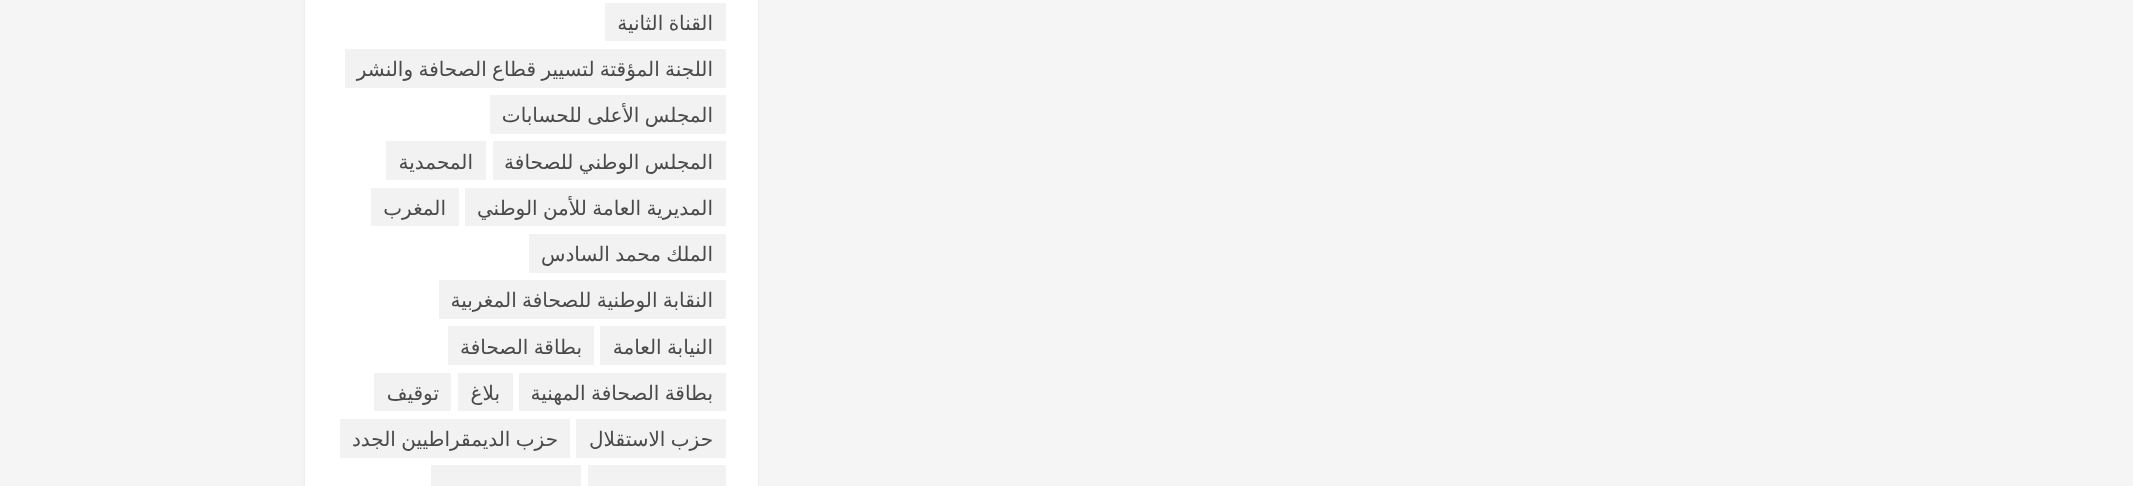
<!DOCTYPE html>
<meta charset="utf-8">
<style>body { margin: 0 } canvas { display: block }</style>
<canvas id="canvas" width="2133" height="486"></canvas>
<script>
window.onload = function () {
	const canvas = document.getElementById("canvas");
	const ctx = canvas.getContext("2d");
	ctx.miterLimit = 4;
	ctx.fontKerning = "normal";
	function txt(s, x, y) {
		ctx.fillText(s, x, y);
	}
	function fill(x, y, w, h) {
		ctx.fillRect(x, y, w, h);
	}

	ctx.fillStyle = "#F5F5F5";
	fill(0, 0, 2133, 486);
	ctx.fillStyle = "rgba(0, 0, 0, 0.08)";
	ctx.filter = "blur(1px)";
	ctx.beginPath();
	ctx.rect(305, -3, 453, 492);
	ctx.fill();
	ctx.filter = "none";
	ctx.fillStyle = "#FFFFFF";
	fill(305, 0, 453, 486);
	ctx.fillStyle = "#F2F2F2";
	fill(605, 3, 121, 38);
	fill(345, 49, 381, 39);
	fill(490, 95, 236, 39);
	fill(493, 141, 233, 39);
	fill(386, 141, 100, 39);
	fill(465, 188, 261, 38);
	fill(371, 188, 88, 38);
	fill(529, 234, 197, 39);
	fill(439, 280, 287, 39);
	fill(600, 326, 126, 39);
	fill(448, 326, 146, 39);
	fill(519, 373, 207, 38);
	fill(458, 373, 55, 38);
	fill(374, 373, 77, 38);
	fill(576, 419, 150, 39);
	fill(340, 419, 230, 39);
	fill(588, 465, 138, 21);
	fill(431, 465, 150, 21);
	ctx.wordSpacing = "-1px";
	ctx.direction = "rtl";
	ctx.font = "20px DejaVu Sans";
	ctx.fillStyle = "#4A4A4A";
	txt("القناة الثانية", 713, 30);
	txt("اللجنة المؤقتة لتسيير قطاع الصحافة والنشر", 713, 76);
	txt("المجلس الأعلى للحسابات", 713, 122);
	txt("المجلس الوطني للصحافة", 713, 169);
	ctx.wordSpacing = "0px";
	txt("المحمدية", 473, 169);
	ctx.wordSpacing = "-1px";
	txt("المديرية العامة للأمن الوطني", 713, 215);
	ctx.wordSpacing = "0px";
	txt("المغرب", 446, 215);
	ctx.wordSpacing = "-1px";
	txt("الملك محمد السادس", 713, 261);
	txt("النقابة الوطنية للصحافة المغربية", 713, 307);
	txt("النيابة العامة", 713, 354);
	txt("بطاقة الصحافة", 582, 354);
	txt("بطاقة الصحافة المهنية", 713, 400);
	ctx.wordSpacing = "0px";
	txt("بلاغ", 500, 400);
	txt("توقيف", 439, 400);
	ctx.wordSpacing = "-1px";
	txt("حزب الاستقلال", 713, 446);
	txt("حزب الديمقراطيين الجدد", 558, 446);
};
</script>
